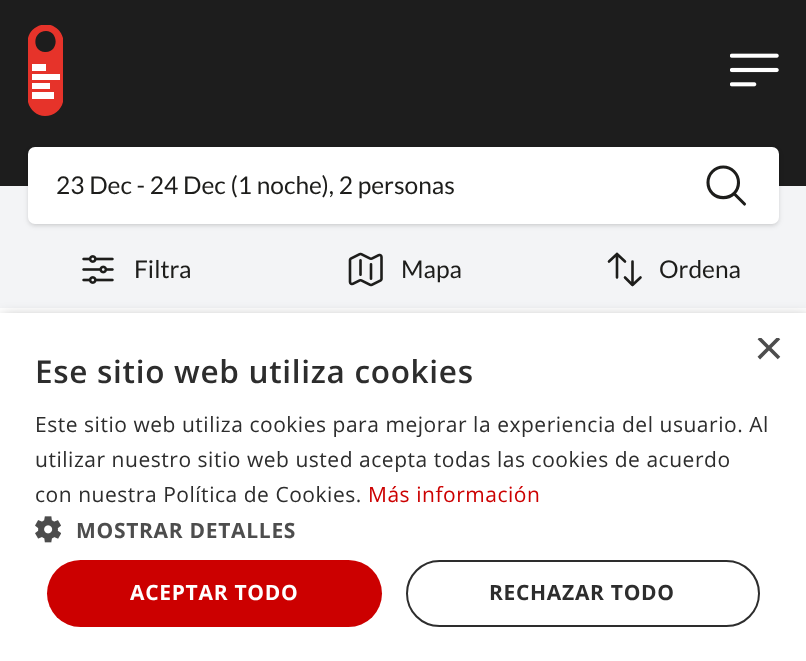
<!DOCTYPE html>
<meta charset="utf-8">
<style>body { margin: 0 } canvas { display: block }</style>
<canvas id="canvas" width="806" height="661"></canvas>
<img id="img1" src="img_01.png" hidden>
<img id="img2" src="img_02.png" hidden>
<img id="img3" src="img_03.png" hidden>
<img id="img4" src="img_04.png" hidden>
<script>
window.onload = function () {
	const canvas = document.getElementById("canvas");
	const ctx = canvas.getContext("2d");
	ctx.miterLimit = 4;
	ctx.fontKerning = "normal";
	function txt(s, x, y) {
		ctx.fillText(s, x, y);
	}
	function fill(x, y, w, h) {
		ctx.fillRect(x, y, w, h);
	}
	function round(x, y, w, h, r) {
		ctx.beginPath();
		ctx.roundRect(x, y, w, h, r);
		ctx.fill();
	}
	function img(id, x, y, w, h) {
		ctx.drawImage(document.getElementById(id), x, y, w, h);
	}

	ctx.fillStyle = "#FFFFFF";
	fill(0, 0, 806, 661);
	ctx.fillStyle = "#1D1D1D";
	fill(0, 0, 806, 186);
	ctx.save();
	ctx.beginPath();
	ctx.rect(28, 25, 35, 91);
	ctx.clip();
	ctx.fillStyle = "#E6332A";
	ctx.beginPath();
	ctx.moveTo(46, 24);
	ctx.bezierCurveTo(37, 25, 30, 30, 28, 38);
	ctx.lineTo(28, 102);
	ctx.bezierCurveTo(30, 110, 37, 116, 45, 116);
	ctx.bezierCurveTo(54, 116, 61, 110, 63, 102);
	ctx.lineTo(63, 38);
	ctx.bezierCurveTo(61, 30, 54, 25, 46, 24);
	ctx.closePath();
	ctx.moveTo(46, 31);
	ctx.bezierCurveTo(59, 31, 59, 53, 45, 52);
	ctx.bezierCurveTo(32, 52, 32, 31, 46, 31);
	ctx.closePath();
	ctx.fill();
	ctx.restore();
	ctx.fillStyle = "#FFFFFF";
	fill(32, 74, 28, 6);
	fill(32, 64, 14, 7);
	fill(32, 92, 22, 7);
	fill(32, 83, 18, 6);
	img("img1", 730, 53, 49, 34);
	ctx.fillStyle = "#F3F4F6";
	fill(0, 186, 806, 122);
	ctx.fillStyle = "rgba(0, 0, 0, 0.1)";
	ctx.filter = "blur(2px)";
	ctx.beginPath();
	ctx.roundRect(30, 151, 747, 73, 5);
	ctx.fill();
	ctx.filter = "none";
	ctx.filter = "blur(2.5px)";
	ctx.beginPath();
	ctx.roundRect(28, 149, 751, 77, 7);
	ctx.fill();
	ctx.filter = "none";
	ctx.fillStyle = "#FFFFFF";
	round(28, 147, 751, 77, 7);
	ctx.beginPath();
	ctx.moveTo(744.5, 204);
	ctx.lineTo(734, 193.5);
	ctx.moveTo(734, 193.5);
	ctx.bezierCurveTo(740, 187.5, 740, 177.5, 734, 171.5);
	ctx.bezierCurveTo(728, 165.5, 718.5, 165.5, 712.5, 171.5);
	ctx.bezierCurveTo(706.5, 177.5, 706.5, 187.5, 712.5, 193.5);
	ctx.bezierCurveTo(718.5, 199, 728, 199, 734, 193.5);
	ctx.closePath();
	ctx.strokeStyle = "#1D1D1B";
	ctx.lineWidth = 3.1;
	ctx.lineCap = "round";
	ctx.lineJoin = "round";
	ctx.stroke();
	img("img2", 82, 255, 32, 29);
	img("img3", 348, 252, 35, 35);
	ctx.beginPath();
	ctx.moveTo(609, 261.5);
	ctx.lineTo(617, 254);
	ctx.moveTo(617, 254);
	ctx.lineTo(625, 261.5);
	ctx.moveTo(617, 254);
	ctx.lineTo(617, 277.5);
	ctx.moveTo(640.5, 277.5);
	ctx.lineTo(632.5, 285);
	ctx.moveTo(632.5, 285);
	ctx.lineTo(625, 277.5);
	ctx.moveTo(632.5, 285);
	ctx.lineTo(632.5, 261.5);
	ctx.lineWidth = 2.6;
	ctx.stroke();
	ctx.fillStyle = "rgba(0, 0, 0, 0.35)";
	ctx.filter = "blur(7px)";
	ctx.beginPath();
	ctx.rect(2, 317, 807, 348);
	ctx.fill();
	ctx.filter = "none";
	ctx.fillStyle = "#FFFFFF";
	fill(0, 313, 806, 348);
	img("img4", 35, 516, 26, 27);
	ctx.fillStyle = "#CC0000";
	round(47, 560, 335, 67, 33.5);
	ctx.beginPath();
	ctx.roundRect(407, 561, 352, 65, 32.5);
	ctx.strokeStyle = "#2D2D2D";
	ctx.lineWidth = 2;
	ctx.lineJoin = "miter";
	ctx.stroke();
	ctx.font = "24.5px Lato";
	ctx.fillStyle = "#1D1D1B";
	txt("23 Dec - 24 Dec (1 noche), 2 personas", 56, 194);
	txt("Filtra", 134, 278);
	txt("Mapa", 401, 278);
	txt("Ordena", 659, 278);
	ctx.save();
	ctx.beginPath();
	ctx.rect(754, 338, 27, 26);
	ctx.clip();
	ctx.font = "51px Liberation Sans";
	ctx.fillStyle = "#4D4D4D";
	txt("×", 754, 365);
	ctx.restore();
	ctx.letterSpacing = "0.7px";
	ctx.font = "600 31.5px Open Sans";
	ctx.fillStyle = "#2D2D2D";
	txt("Ese sitio web utiliza cookies", 35, 383);
	ctx.letterSpacing = "0.53px";
	ctx.font = "21px Open Sans";
	txt("Este sitio web utiliza cookies para mejorar la experiencia del usuario. Al", 35, 432);
	txt("utilizar nuestro sitio web usted acepta todas las cookies de acuerdo", 35, 467);
	txt("con nuestra Política de Cookies.", 35, 502);
	ctx.fillStyle = "#CC0000";
	txt("Más información", 368, 502);
	ctx.letterSpacing = "0.7px";
	ctx.font = "bold 21px Open Sans";
	ctx.fillStyle = "#4D4D4D";
	txt("MOSTRAR DETALLES", 76, 538);
	ctx.fillStyle = "#FFFFFF";
	txt("ACEPTAR TODO", 130, 600);
	ctx.fillStyle = "#2D2D2D";
	txt("RECHAZAR TODO", 489, 600);
};
</script>
